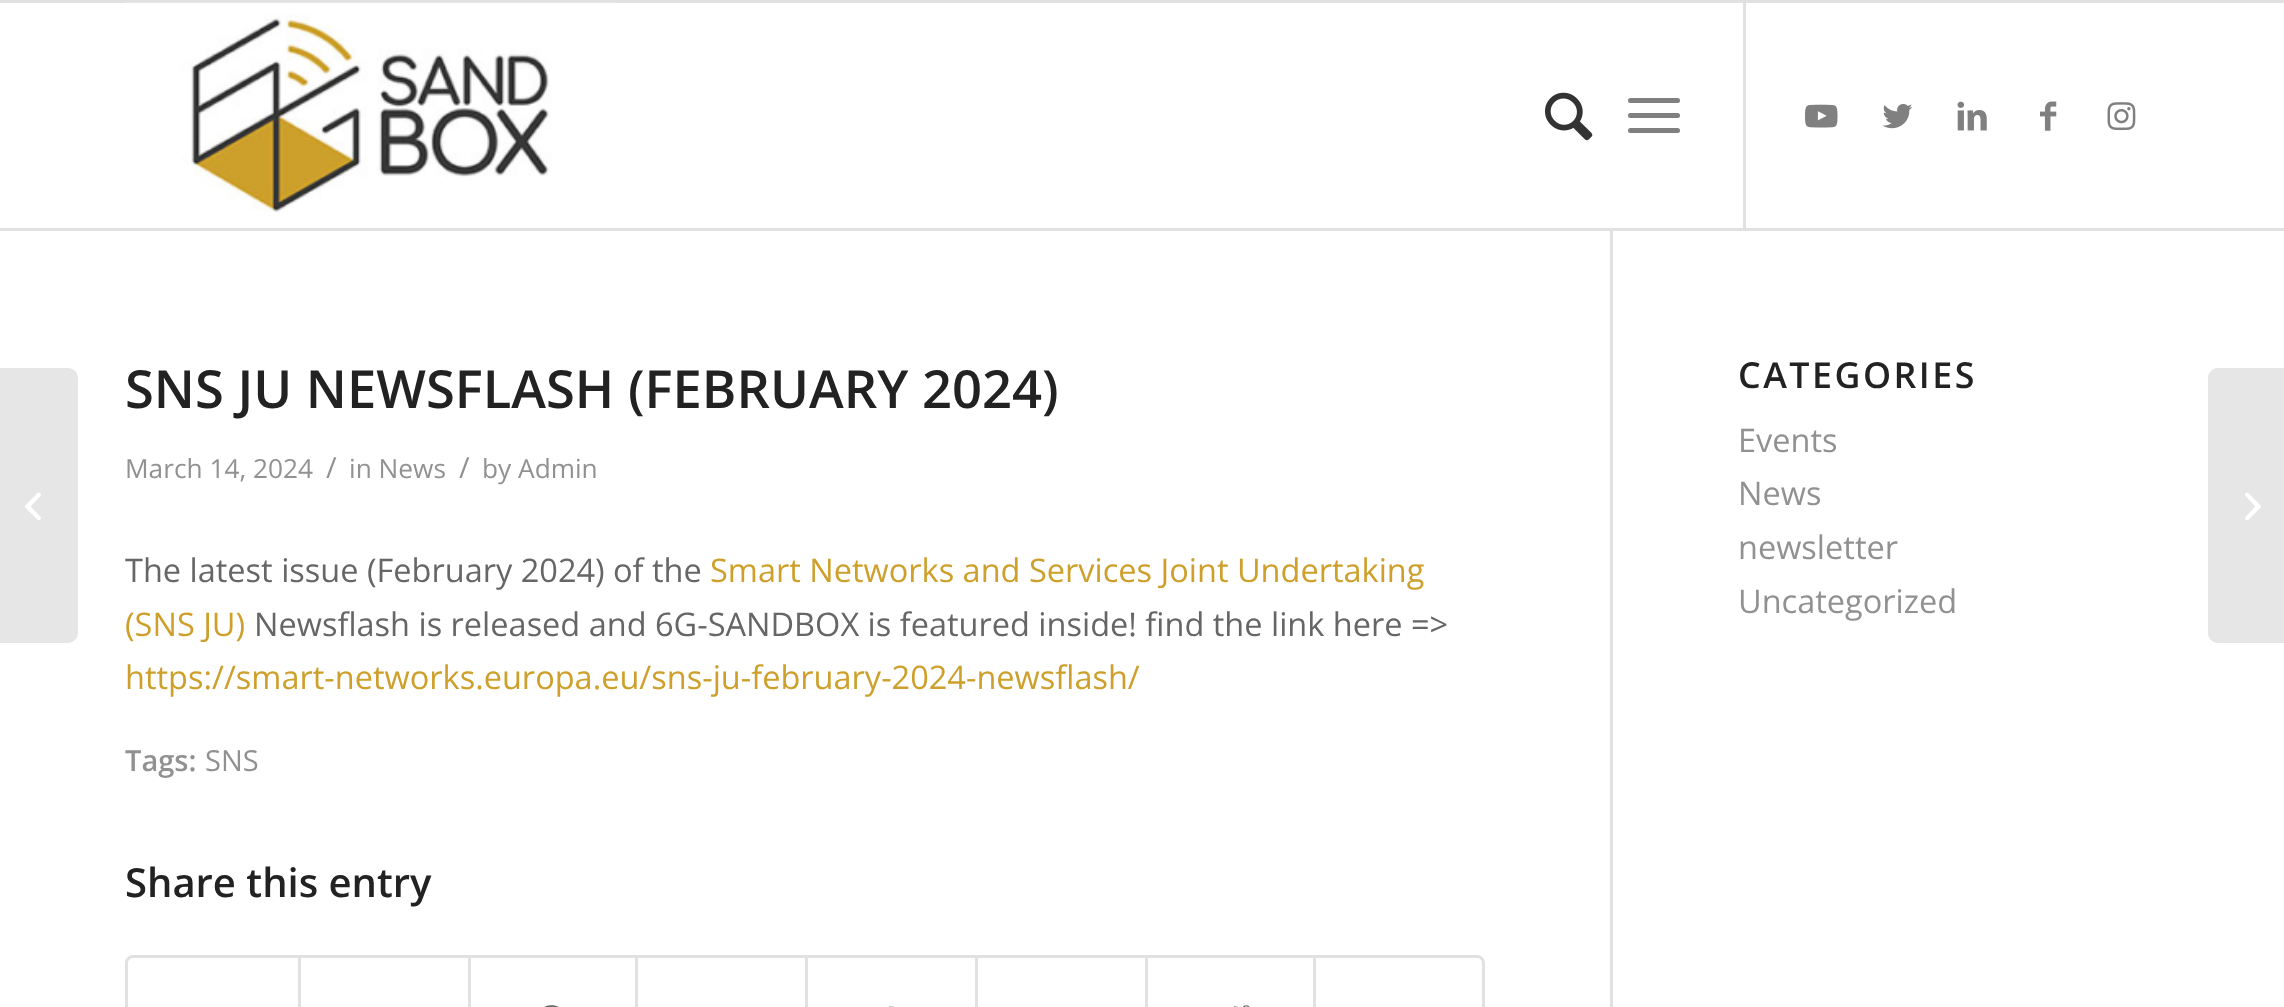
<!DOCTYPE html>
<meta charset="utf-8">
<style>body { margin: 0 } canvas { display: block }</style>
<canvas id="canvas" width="2284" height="1007"></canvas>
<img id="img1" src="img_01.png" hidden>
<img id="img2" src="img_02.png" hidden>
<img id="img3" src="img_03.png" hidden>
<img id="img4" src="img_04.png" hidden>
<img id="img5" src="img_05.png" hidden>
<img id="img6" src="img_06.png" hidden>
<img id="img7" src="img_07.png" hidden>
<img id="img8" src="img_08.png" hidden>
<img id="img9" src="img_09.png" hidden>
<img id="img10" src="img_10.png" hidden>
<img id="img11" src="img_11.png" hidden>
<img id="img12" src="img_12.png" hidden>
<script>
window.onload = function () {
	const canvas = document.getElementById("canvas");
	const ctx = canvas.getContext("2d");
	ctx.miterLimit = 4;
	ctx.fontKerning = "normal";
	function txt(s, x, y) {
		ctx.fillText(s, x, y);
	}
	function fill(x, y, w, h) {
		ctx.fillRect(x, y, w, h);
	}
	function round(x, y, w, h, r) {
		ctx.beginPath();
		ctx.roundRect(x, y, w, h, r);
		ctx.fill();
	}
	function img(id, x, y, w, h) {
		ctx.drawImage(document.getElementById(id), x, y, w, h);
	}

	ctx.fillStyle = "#FFFFFF";
	fill(0, 0, 2284, 1007);
	ctx.fillStyle = "#E1E1E1";
	fill(0, 0, 2284, 3);
	fill(1610, 230, 3, 777);
	fill(0, 228, 2284, 3);
	img("img1", 125, 2, 490, 210);
	fill(1743, 3, 3, 225);
	img("img2", 1545, 92, 48, 49);
	ctx.fillStyle = "#808080";
	round(1628, 113, 52, 5, 2.5);
	round(1628, 98, 52, 5, 2.5);
	round(1628, 128, 52, 5, 2.5);
	img("img3", 1805, 104, 33, 24);
	img("img4", 1882, 104, 31, 25);
	img("img5", 1957, 101, 30, 30);
	img("img6", 2040, 101, 17, 30);
	img("img7", 2107, 102, 29, 29);
	ctx.fillStyle = "#E6E6E6";
	ctx.beginPath();
	ctx.roundRect(0, 368, 78, 275, [0, 10, 10, 0]);
	ctx.fill();
	img("img8", 25, 492, 16, 29);
	ctx.beginPath();
	ctx.roundRect(126.5, 956.5, 1357, 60, 6.5);
	ctx.strokeStyle = "#E1E1E1";
	ctx.lineWidth = 3;
	ctx.stroke();
	ctx.fillStyle = "#E1E1E1";
	fill(298, 958, 3, 49);
	fill(468, 958, 3, 49);
	img("img9", 544, 1005, 15, 2);
	fill(635, 958, 3, 49);
	fill(805, 958, 3, 49);
	img("img10", 888, 1006, 6, 1);
	fill(975, 958, 3, 49);
	fill(1145, 958, 3, 49);
	img("img11", 1233, 1005, 17, 2);
	fill(1313, 958, 3, 49);
	ctx.fillStyle = "#E6E6E6";
	ctx.beginPath();
	ctx.moveTo(2218, 368);
	ctx.lineTo(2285, 368);
	ctx.lineTo(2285, 643);
	ctx.lineTo(2218, 643);
	ctx.bezierCurveTo(2212.5, 643, 2208, 638.5, 2208, 633);
	ctx.lineTo(2208, 378);
	ctx.bezierCurveTo(2208, 372.5, 2212.5, 368, 2218, 368);
	ctx.closePath();
	ctx.fill();
	img("img12", 2245, 492, 16, 29);
	ctx.font = "600 52.5px Open Sans";
	ctx.fillStyle = "#222222";
	txt("SNS JU NEWSFLASH (FEBRUARY 2024)", 125, 408);
	ctx.font = "26.25px Open Sans";
	ctx.fillStyle = "#919191";
	txt("March 14, 2024", 125, 478);
	ctx.font = "29px Open Sans";
	txt("/", 326, 478);
	ctx.font = "26.25px Open Sans";
	txt("in News", 349, 478);
	ctx.font = "29px Open Sans";
	txt("/", 459, 478);
	ctx.font = "26.25px Open Sans";
	txt("by Admin", 482, 478);
	ctx.font = "32.5px Open Sans";
	ctx.fillStyle = "#666666";
	txt("The latest issue (February 2024) of the", 125, 582);
	ctx.fillStyle = "#CEA02B";
	txt("Smart Networks and Services Joint Undertaking", 710, 582);
	txt("(SNS JU)", 125, 636);
	ctx.fillStyle = "#666666";
	txt("Newsflash is released and 6G-SANDBOX is featured inside! find the link here =>", 254, 636);
	ctx.fillStyle = "#CEA02B";
	txt("https://smart-networks.europa.eu/sns-ju-february-2024-newsflash/", 125, 689);
	ctx.font = "600 29px Open Sans";
	ctx.fillStyle = "#919191";
	txt("Tags:", 125, 771);
	ctx.font = "29px Open Sans";
	txt("SNS", 205, 771);
	ctx.font = "600 40px Open Sans";
	ctx.fillStyle = "#222222";
	txt("Share this entry", 125, 897);
	ctx.letterSpacing = "2.5px";
	ctx.font = "600 35.75px Open Sans";
	txt("CATEGORIES", 1738, 388);
	ctx.letterSpacing = "0px";
	ctx.font = "32.5px Open Sans";
	ctx.fillStyle = "#919191";
	txt("Events", 1738, 452);
	txt("News", 1738, 505);
	txt("newsletter", 1738, 559);
	txt("Uncategorized", 1738, 613);
};
</script>
